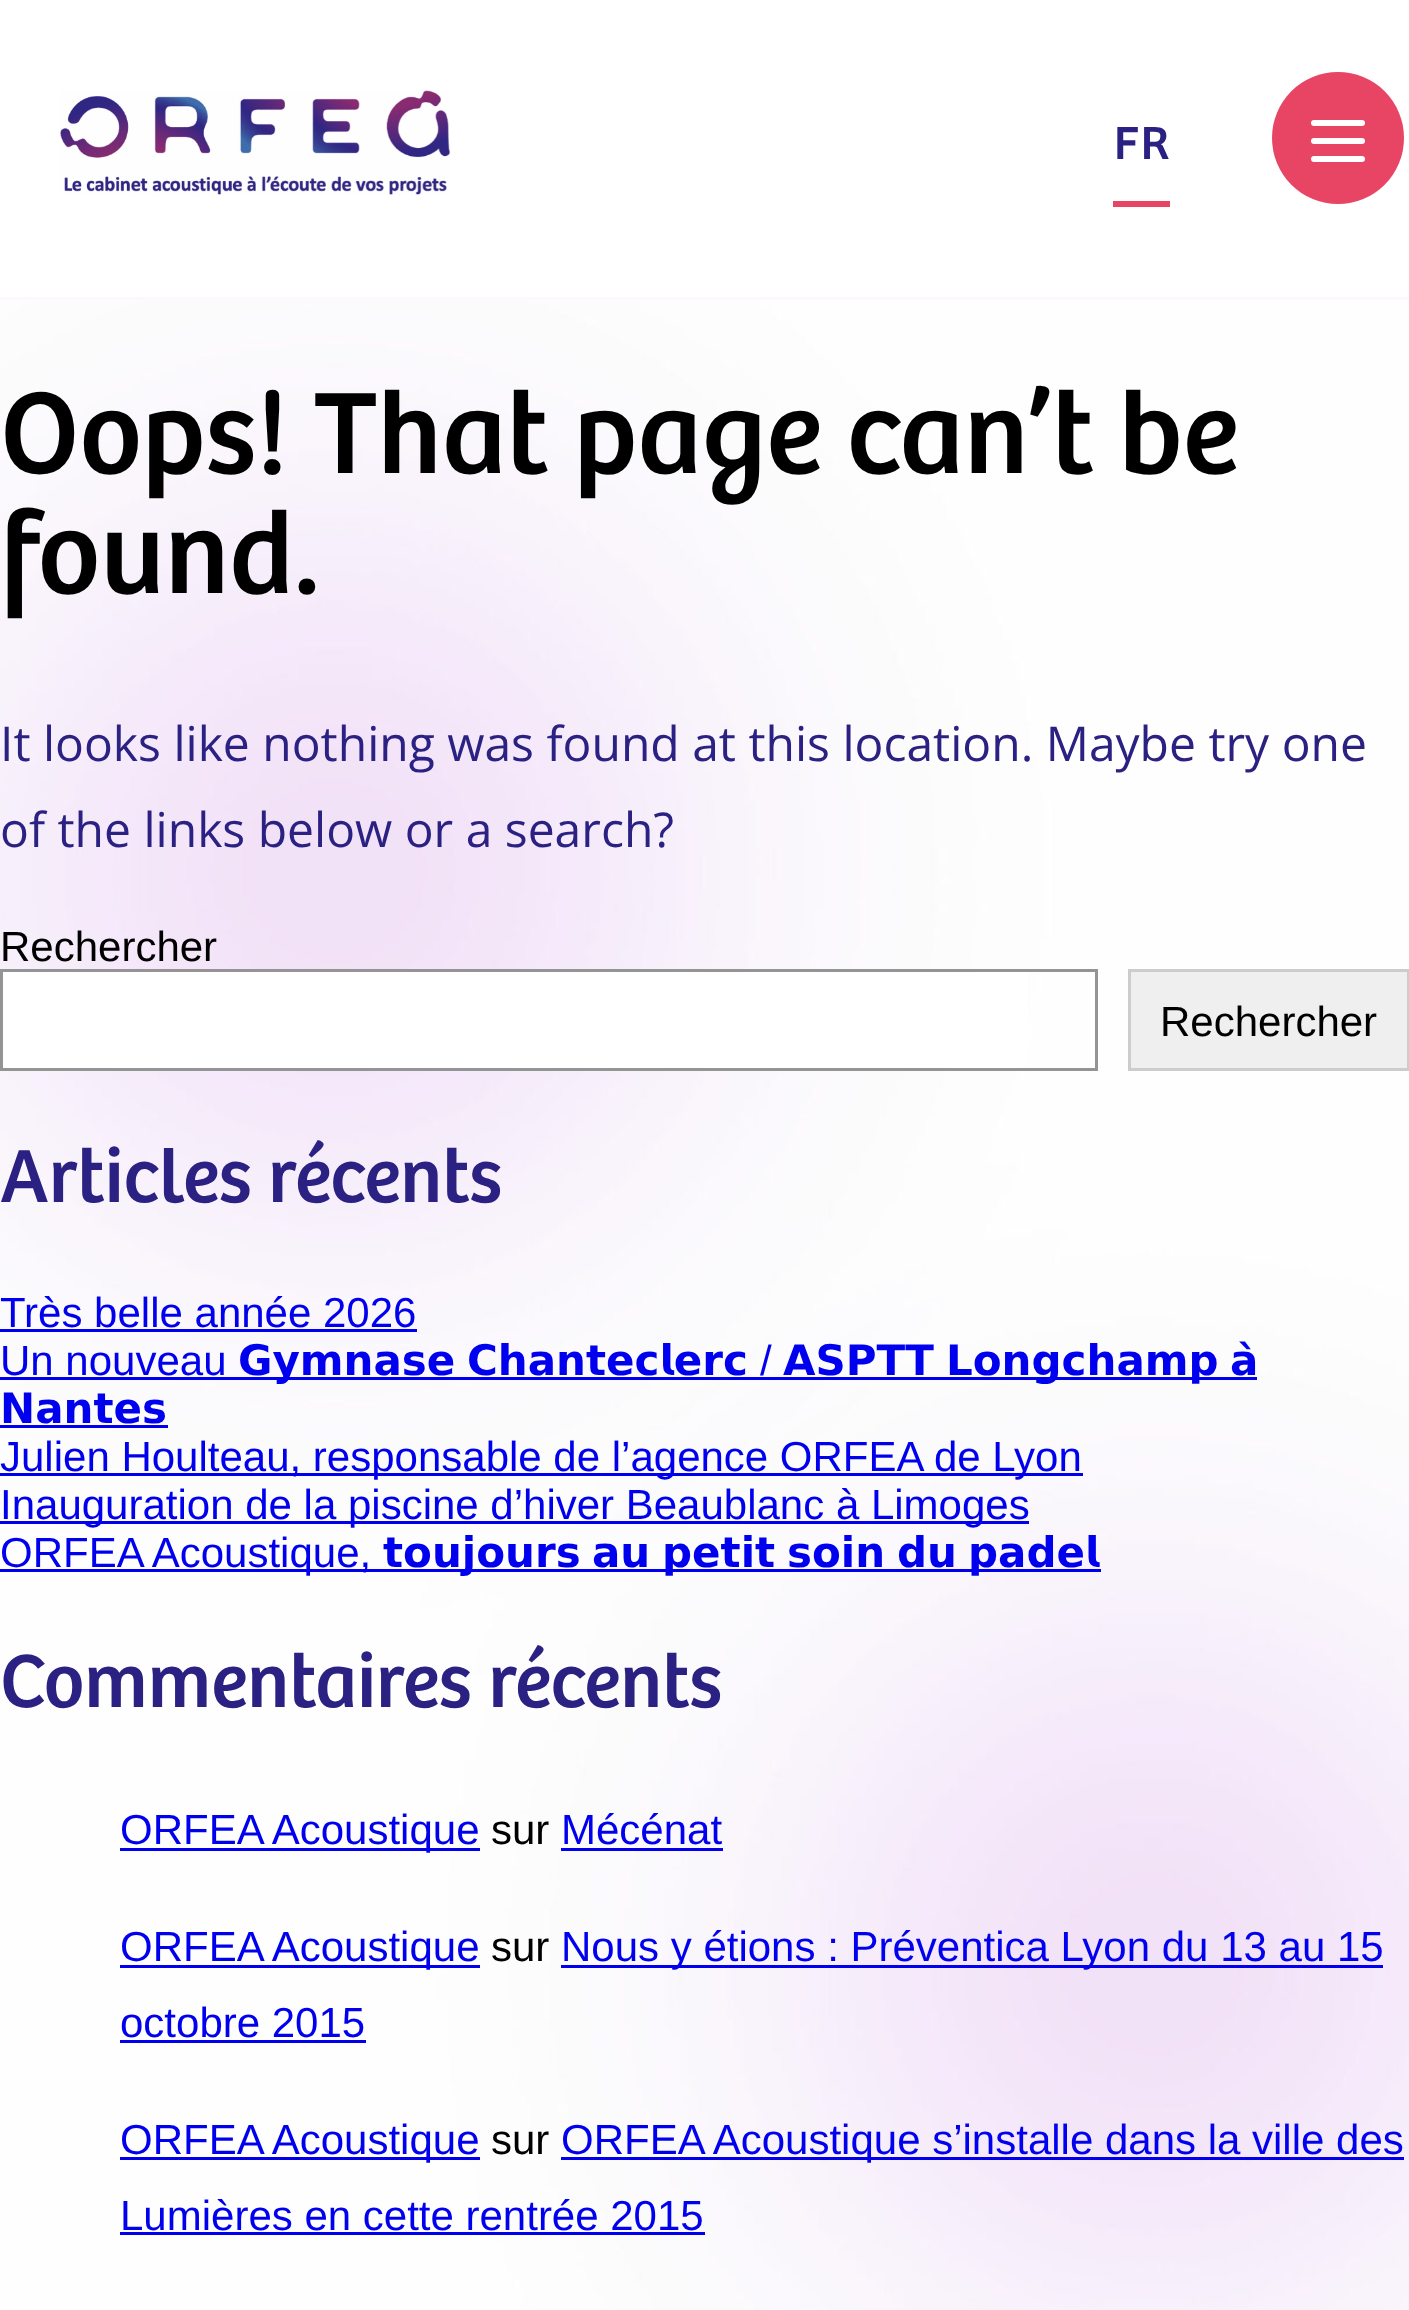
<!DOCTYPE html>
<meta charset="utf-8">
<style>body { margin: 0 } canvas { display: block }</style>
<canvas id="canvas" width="1409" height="2310"></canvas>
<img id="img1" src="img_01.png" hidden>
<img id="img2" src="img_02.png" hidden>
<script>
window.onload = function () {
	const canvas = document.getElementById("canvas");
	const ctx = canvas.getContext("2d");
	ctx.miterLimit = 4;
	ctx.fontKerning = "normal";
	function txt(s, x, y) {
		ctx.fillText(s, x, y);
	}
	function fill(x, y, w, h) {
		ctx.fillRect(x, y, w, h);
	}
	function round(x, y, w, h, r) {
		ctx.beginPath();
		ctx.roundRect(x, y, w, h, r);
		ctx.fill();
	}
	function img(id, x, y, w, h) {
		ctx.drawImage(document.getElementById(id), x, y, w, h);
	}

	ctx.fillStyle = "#FFFFFF";
	fill(0, 0, 1409, 2310);
	img("img1", 0, 300, 1409, 2010);
	ctx.fillStyle = "#FDF8FF";
	fill(0, 297, 1409, 3);
	img("img2", 60, 90, 390, 105);
	ctx.fillStyle = "#E84564";
	fill(1113, 201, 57, 6);
	ctx.beginPath();
	ctx.arc(1338, 138, 66, 0, Math.PI * 2);
	ctx.fill();
	ctx.fillStyle = "#FFFFFF";
	round(1311, 120, 54, 6, 3);
	round(1311, 138, 54, 6, 3);
	round(1311, 156, 54, 6, 3);
	fill(3, 972, 1025, 96);
	ctx.strokeStyle = "#949494";
	ctx.lineWidth = 3;
	ctx.strokeRect(1.5, 970.5, 1095, 99);
	ctx.fillStyle = "#EFEFEF";
	ctx.beginPath();
	ctx.rect(1129.5, 970.5, 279, 99);
	ctx.fill();
	ctx.strokeStyle = "#CCCCCC";
	ctx.stroke();
	ctx.fillStyle = "#0000EE";
	fill(0, 1329, 417, 3);
	fill(0, 1377, 1257, 3);
	fill(0, 1425, 168, 3);
	fill(0, 1473, 1083, 3);
	fill(0, 1521, 1029, 3);
	fill(0, 1569, 1101, 3);
	fill(120, 1848, 360, 3);
	fill(561, 1848, 162, 3);
	fill(120, 1965, 360, 3);
	fill(561, 1965, 822, 3);
	fill(120, 2040, 246, 3);
	fill(120, 2157, 360, 3);
	fill(561, 2157, 843, 3);
	fill(120, 2232, 585, 3);
	ctx.letterSpacing = "2px";
	ctx.font = "48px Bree";
	ctx.fillStyle = "#2A2183";
	txt("FR", 1114, 159);
	ctx.letterSpacing = "0px";
	ctx.font = "120px Bree";
	ctx.fillStyle = "#000000";
	txt("Oops! That page can’t be", 0, 473);
	txt("found.", 0, 593);
	ctx.font = "48px Open Sans";
	ctx.fillStyle = "#2A2183";
	txt("It looks like nothing was found at this location. Maybe try one", 0, 761);
	txt("of the links below or a search?", 0, 847);
	ctx.font = "42px Liberation Sans";
	ctx.fillStyle = "#000000";
	txt("Rechercher", 0, 961);
	txt("Rechercher", 1160, 1036);
	ctx.font = "78px Bree";
	ctx.fillStyle = "#2A2183";
	txt("Articles récents", 0, 1202);
	ctx.font = "42px Liberation Sans";
	ctx.fillStyle = "#0000EE";
	txt("Très belle année 2026", 0, 1327);
	txt("Un nouveau", 0, 1375);
	ctx.font = "bold 42px DejaVu Sans";
	txt("𝗚𝘆𝗺𝗻𝗮𝘀𝗲", 238, 1375);
	txt("𝗖𝗵𝗮𝗻𝘁𝗲𝗰𝗹𝗲𝗿𝗰", 467, 1375);
	ctx.font = "42px Liberation Sans";
	txt("/", 760, 1375);
	ctx.font = "bold 42px DejaVu Sans";
	txt("𝗔𝗦𝗣𝗧𝗧", 783, 1375);
	txt("𝗟𝗼𝗻𝗴𝗰𝗵𝗮𝗺𝗽", 946, 1375);
	txt("𝗮̀", 1230, 1375);
	txt("𝗡𝗮𝗻𝘁𝗲𝘀", 0, 1423);
	ctx.font = "42px Liberation Sans";
	txt("Julien Houlteau, responsable de l’agence ORFEA de Lyon", 0, 1471);
	txt("Inauguration de la piscine d’hiver Beaublanc à Limoges", 0, 1519);
	txt("ORFEA Acoustique,", 0, 1567);
	ctx.font = "bold 42px DejaVu Sans";
	txt("𝘁𝗼𝘂𝗷𝗼𝘂𝗿𝘀", 383, 1567);
	txt("𝗮𝘂", 592, 1567);
	txt("𝗽𝗲𝘁𝗶𝘁", 662, 1567);
	txt("𝘀𝗼𝗶𝗻", 787, 1567);
	txt("𝗱𝘂", 897, 1567);
	txt("𝗽𝗮𝗱𝗲𝗹", 968, 1567);
	ctx.font = "78px Bree";
	ctx.fillStyle = "#2A2183";
	txt("Commentaires récents", 0, 1707);
	ctx.font = "42px Liberation Sans";
	ctx.fillStyle = "#0000EE";
	txt("ORFEA Acoustique", 120, 1844);
	ctx.fillStyle = "#000000";
	txt("sur", 491, 1844);
	ctx.fillStyle = "#0000EE";
	txt("Mécénat", 561, 1844);
	txt("ORFEA Acoustique", 120, 1961);
	ctx.fillStyle = "#000000";
	txt("sur", 491, 1961);
	ctx.fillStyle = "#0000EE";
	txt("Nous y étions : Préventica Lyon du 13 au 15", 561, 1961);
	txt("octobre 2015", 120, 2037);
	txt("ORFEA Acoustique", 120, 2154);
	ctx.fillStyle = "#000000";
	txt("sur", 491, 2154);
	ctx.fillStyle = "#0000EE";
	txt("ORFEA Acoustique s’installe dans la ville des", 561, 2154);
	txt("Lumières en cette rentrée 2015", 120, 2230);
};
</script>
